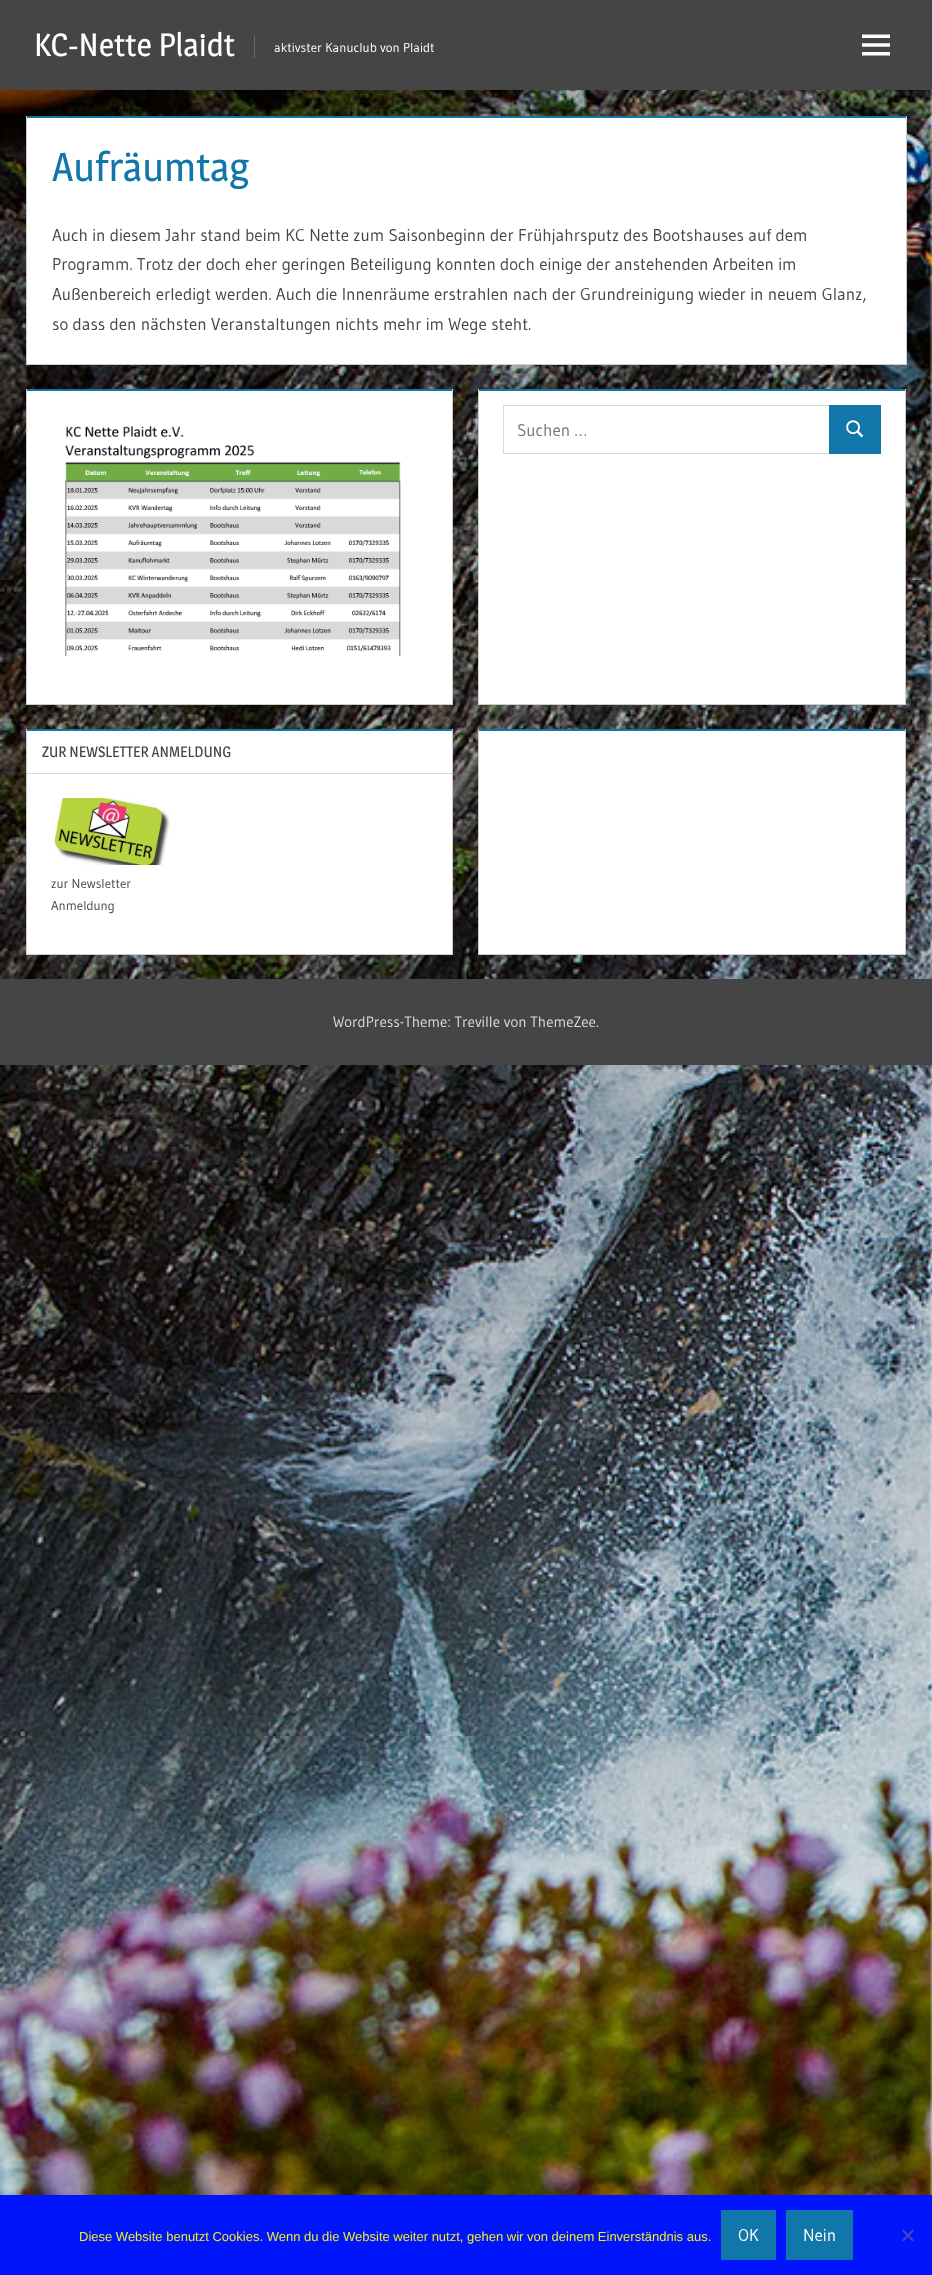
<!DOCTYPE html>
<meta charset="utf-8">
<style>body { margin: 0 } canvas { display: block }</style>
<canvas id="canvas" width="932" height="2275"></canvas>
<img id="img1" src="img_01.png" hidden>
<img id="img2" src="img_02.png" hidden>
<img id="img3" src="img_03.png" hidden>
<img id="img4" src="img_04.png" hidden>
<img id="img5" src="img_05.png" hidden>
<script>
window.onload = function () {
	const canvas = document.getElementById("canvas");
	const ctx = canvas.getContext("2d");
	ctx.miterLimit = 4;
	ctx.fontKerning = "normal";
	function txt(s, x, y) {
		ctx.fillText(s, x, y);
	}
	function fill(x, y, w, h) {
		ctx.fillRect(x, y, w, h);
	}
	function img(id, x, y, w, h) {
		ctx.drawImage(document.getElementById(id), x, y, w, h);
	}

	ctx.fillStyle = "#FFFFFF";
	fill(0, 0, 932, 2275);
	img("img1", 0, 90, 932, 2105);
	ctx.fillStyle = "#454545";
	fill(0, 0, 932, 90);
	ctx.fillStyle = "#6A6A6A";
	fill(254, 36, 1, 22);
	img("img2", 862, 34, 28, 22);
	ctx.fillStyle = "#FFFFFF";
	fill(26, 116, 881, 249);
	ctx.fillStyle = "#1177AA";
	fill(27, 116, 879, 2);
	ctx.fillStyle = "#CCCCCC";
	ctx.beginPath();
	ctx.moveTo(907, 116);
	ctx.lineTo(907, 365);
	ctx.lineTo(906, 364);
	ctx.lineTo(906, 116);
	ctx.closePath();
	ctx.fill();
	ctx.fillStyle = "rgba(0, 0, 0, 0.2)";
	ctx.beginPath();
	ctx.moveTo(907, 365);
	ctx.lineTo(26, 365);
	ctx.lineTo(27, 364);
	ctx.lineTo(906, 364);
	ctx.closePath();
	ctx.fill();
	ctx.beginPath();
	ctx.moveTo(26, 365);
	ctx.lineTo(26, 116);
	ctx.lineTo(27, 116);
	ctx.lineTo(27, 364);
	ctx.closePath();
	ctx.fill();
	ctx.fillStyle = "#FFFFFF";
	fill(26, 389, 427, 316);
	ctx.fillStyle = "#1177AA";
	fill(27, 389, 425, 2);
	ctx.fillStyle = "#CCCCCC";
	ctx.beginPath();
	ctx.moveTo(453, 389);
	ctx.lineTo(453, 705);
	ctx.lineTo(452, 704);
	ctx.lineTo(452, 389);
	ctx.closePath();
	ctx.fill();
	ctx.fillStyle = "rgba(0, 0, 0, 0.2)";
	ctx.beginPath();
	ctx.moveTo(453, 705);
	ctx.lineTo(26, 705);
	ctx.lineTo(27, 704);
	ctx.lineTo(452, 704);
	ctx.closePath();
	ctx.fill();
	ctx.beginPath();
	ctx.moveTo(26, 705);
	ctx.lineTo(26, 389);
	ctx.lineTo(27, 389);
	ctx.lineTo(27, 704);
	ctx.closePath();
	ctx.fill();
	img("img3", 65, 426, 336, 230);
	ctx.fillStyle = "#FFFFFF";
	fill(478, 389, 428, 316);
	ctx.fillStyle = "#1177AA";
	fill(479, 389, 426, 2);
	ctx.fillStyle = "#CCCCCC";
	ctx.beginPath();
	ctx.moveTo(906, 389);
	ctx.lineTo(906, 705);
	ctx.lineTo(905, 704);
	ctx.lineTo(905, 389);
	ctx.closePath();
	ctx.fill();
	ctx.fillStyle = "rgba(0, 0, 0, 0.2)";
	ctx.beginPath();
	ctx.moveTo(906, 705);
	ctx.lineTo(478, 705);
	ctx.lineTo(479, 704);
	ctx.lineTo(905, 704);
	ctx.closePath();
	ctx.fill();
	ctx.beginPath();
	ctx.moveTo(478, 705);
	ctx.lineTo(478, 389);
	ctx.lineTo(479, 389);
	ctx.lineTo(479, 704);
	ctx.closePath();
	ctx.fill();
	ctx.strokeStyle = "#D9D9D9";
	ctx.strokeRect(503.5, 405.5, 326, 48);
	ctx.fillStyle = "#1177AA";
	fill(829, 405, 52, 49);
	img("img4", 846, 420, 18, 18);
	ctx.fillStyle = "#FFFFFF";
	fill(26, 729, 427, 226);
	ctx.fillStyle = "#1177AA";
	fill(27, 729, 425, 2);
	ctx.fillStyle = "#CCCCCC";
	ctx.beginPath();
	ctx.moveTo(453, 729);
	ctx.lineTo(453, 955);
	ctx.lineTo(452, 954);
	ctx.lineTo(452, 729);
	ctx.closePath();
	ctx.fill();
	ctx.fillStyle = "rgba(0, 0, 0, 0.2)";
	ctx.beginPath();
	ctx.moveTo(453, 955);
	ctx.lineTo(26, 955);
	ctx.lineTo(27, 954);
	ctx.lineTo(452, 954);
	ctx.closePath();
	ctx.fill();
	ctx.beginPath();
	ctx.moveTo(26, 955);
	ctx.lineTo(26, 729);
	ctx.lineTo(27, 729);
	ctx.lineTo(27, 954);
	ctx.closePath();
	ctx.fill();
	ctx.fillStyle = "#D9D9D9";
	fill(27, 773, 425, 1);
	img("img5", 51, 798, 119, 67);
	ctx.fillStyle = "#FFFFFF";
	fill(478, 729, 428, 226);
	ctx.fillStyle = "#1177AA";
	fill(479, 729, 426, 2);
	ctx.fillStyle = "#CCCCCC";
	ctx.beginPath();
	ctx.moveTo(906, 729);
	ctx.lineTo(906, 955);
	ctx.lineTo(905, 954);
	ctx.lineTo(905, 729);
	ctx.closePath();
	ctx.fill();
	ctx.fillStyle = "rgba(0, 0, 0, 0.2)";
	ctx.beginPath();
	ctx.moveTo(906, 955);
	ctx.lineTo(478, 955);
	ctx.lineTo(479, 954);
	ctx.lineTo(905, 954);
	ctx.closePath();
	ctx.fill();
	ctx.beginPath();
	ctx.moveTo(478, 955);
	ctx.lineTo(478, 729);
	ctx.lineTo(479, 729);
	ctx.lineTo(479, 954);
	ctx.closePath();
	ctx.fill();
	ctx.fillStyle = "#454545";
	fill(0, 979, 932, 86);
	ctx.fillStyle = "#0015FC";
	fill(0, 2195, 932, 80);
	ctx.fillStyle = "#1177AA";
	fill(721, 2210, 55, 50);
	fill(786, 2210, 67, 50);
	ctx.fillStyle = "#404BBE";
	ctx.beginPath();
	ctx.moveTo(912.5, 2229.5);
	ctx.lineTo(914, 2231);
	ctx.lineTo(903.5, 2241.5);
	ctx.lineTo(902, 2240);
	ctx.closePath();
	ctx.fill();
	ctx.beginPath();
	ctx.moveTo(902, 2231);
	ctx.lineTo(903.5, 2229.5);
	ctx.lineTo(914, 2240);
	ctx.lineTo(912.5, 2241.5);
	ctx.closePath();
	ctx.fill();
	ctx.font = "32px Magra";
	ctx.fillStyle = "#FFFFFF";
	txt("KC-Nette Plaidt", 34, 56);
	ctx.font = "13px Gudea";
	txt("aktivster Kanuclub von Plaidt", 274, 52);
	ctx.font = "40px Magra";
	ctx.fillStyle = "#1177AA";
	txt("Aufräumtag", 52, 181);
	ctx.font = "17px Gudea";
	ctx.fillStyle = "#454545";
	txt("Auch in diesem Jahr stand beim KC Nette zum Saisonbeginn der Frühjahrsputz des Bootshauses auf dem", 52, 241);
	txt("Programm. Trotz der doch eher geringen Beteiligung konnten doch einige der anstehenden Arbeiten im", 52, 270);
	txt("Außenbereich erledigt werden. Auch die Innenräume erstrahlen nach der Grundreinigung wieder in neuem Glanz,", 52, 300);
	txt("so dass den nächsten Veranstaltungen nichts mehr im Wege steht.", 52, 330);
	ctx.fillStyle = "#757575";
	txt("Suchen …", 517, 436);
	ctx.font = "15px Magra";
	ctx.fillStyle = "#454545";
	txt("ZUR NEWSLETTER ANMELDUNG", 42, 757);
	ctx.font = "13px Gudea";
	txt("zur Newsletter", 51, 888);
	txt("Anmeldung", 51, 910);
	ctx.font = "15px Gudea";
	ctx.fillStyle = "#DDDDDD";
	txt("WordPress-Theme: Treville von ThemeZee.", 333, 1027);
	ctx.font = "13px Liberation Sans";
	ctx.fillStyle = "#EEEE22";
	txt("Diese Website benutzt Cookies. Wenn du die Website weiter nutzt, gehen wir von deinem Einverständnis aus.", 79, 2241);
	ctx.font = "17px Gudea";
	ctx.fillStyle = "#FFFFFF";
	txt("OK", 738, 2241);
	txt("Nein", 803, 2241);
};
</script>
